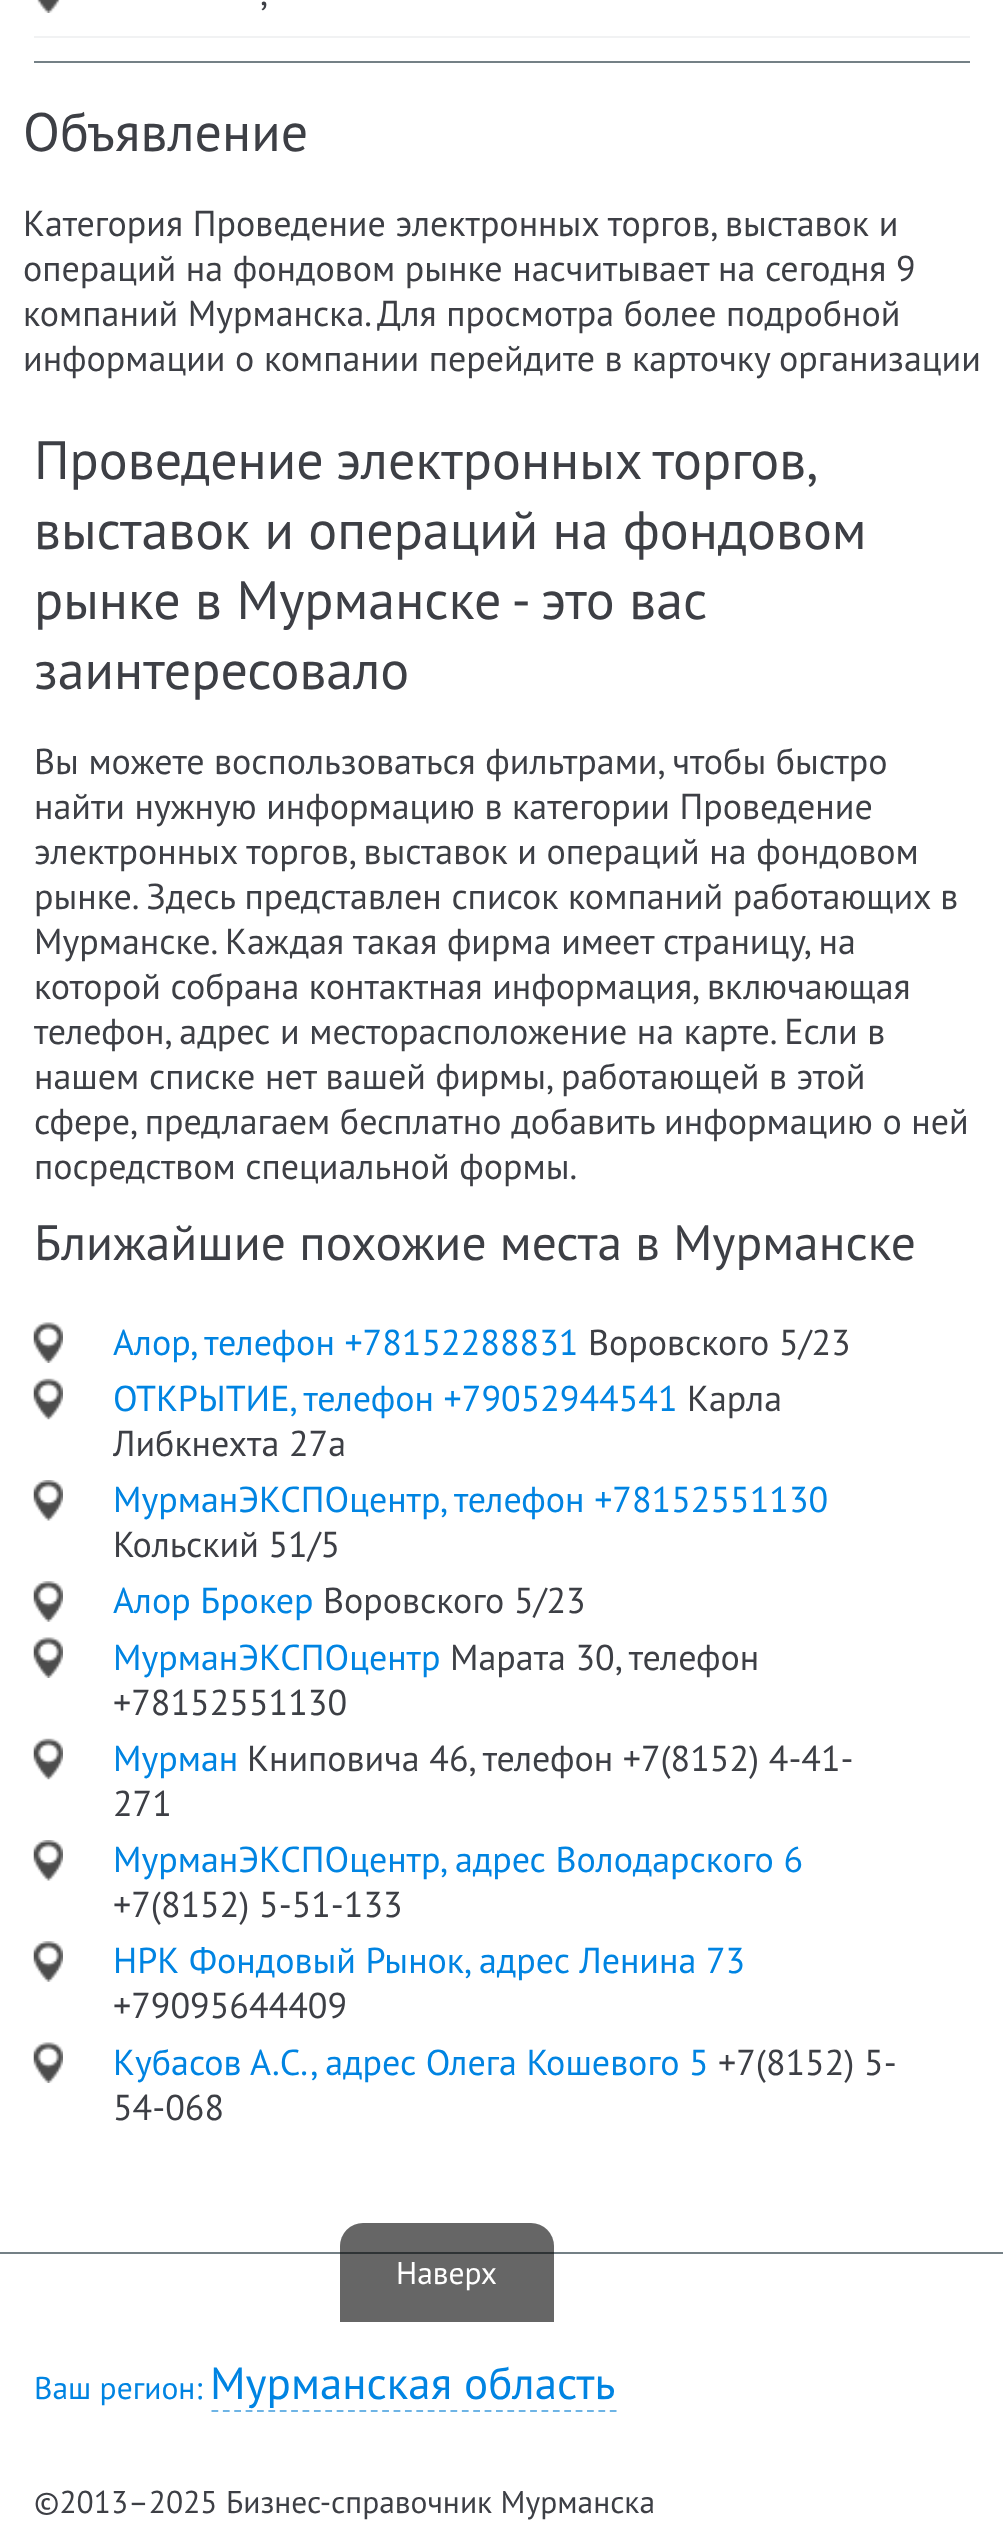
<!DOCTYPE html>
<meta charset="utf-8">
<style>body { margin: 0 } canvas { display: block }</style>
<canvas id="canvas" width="1003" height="2547"></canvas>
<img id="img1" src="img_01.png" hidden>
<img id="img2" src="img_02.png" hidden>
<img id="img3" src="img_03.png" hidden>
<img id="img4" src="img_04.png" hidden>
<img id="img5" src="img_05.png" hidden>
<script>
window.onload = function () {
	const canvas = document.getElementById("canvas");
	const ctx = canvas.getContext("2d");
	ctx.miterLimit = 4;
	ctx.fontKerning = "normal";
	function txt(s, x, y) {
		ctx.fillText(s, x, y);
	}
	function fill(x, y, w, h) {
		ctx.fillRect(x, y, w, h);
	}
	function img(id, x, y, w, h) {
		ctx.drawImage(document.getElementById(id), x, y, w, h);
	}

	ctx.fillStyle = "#FFFFFF";
	fill(0, 0, 1003, 2547);
	ctx.fillStyle = "#F1F2F3";
	fill(34, 36, 936, 2);
	img("img1", 37, 0, 23, 13);
	ctx.fillStyle = "#748086";
	fill(34, 61, 936, 2);
	fill(0, 2252, 1003, 2);
	img("img2", 33, 1322, 30, 41);
	img("img3", 33, 1378, 30, 42);
	img("img4", 33, 1480, 30, 41);
	img("img5", 33, 1581, 30, 41);
	img("img2", 33, 1637, 30, 41);
	img("img3", 33, 1738, 30, 42);
	img("img4", 33, 1840, 30, 41);
	img("img5", 33, 1941, 30, 41);
	img("img2", 33, 2042, 30, 41);
	ctx.fillStyle = "rgba(0, 0, 0, 0.6)";
	ctx.beginPath();
	ctx.roundRect(340, 2223, 214, 99, [23, 23, 0, 0]);
	ctx.fill();
	ctx.beginPath();
	ctx.moveTo(211.5, 2411);
	ctx.lineTo(616.5, 2411);
	ctx.strokeStyle = "#6EB4E5";
	ctx.lineWidth = 2.2;
	ctx.setLineDash([6.75, 4.63]);
	ctx.stroke();
	ctx.font = "36px PT Sans";
	ctx.fillStyle = "#3D3F45";
	txt(",", 260, 5);
	ctx.font = "54px PT Sans";
	txt("Объявление", 23, 151);
	ctx.font = "36px PT Sans";
	txt("Категория Проведение электронных торгов, выставок и", 23, 236);
	txt("операций на фондовом рынке насчитывает на сегодня 9", 23, 281);
	txt("компаний Мурманска.", 23, 326);
	txt("Для просмотра более подробной", 377, 326);
	txt("информации о компании перейдите в карточку организации", 23, 371);
	ctx.wordSpacing = "-2px";
	ctx.font = "54px PT Sans";
	txt("Проведение электронных торгов,", 34, 479);
	ctx.wordSpacing = "0px";
	txt("выставок и операций на фондовом", 34, 549);
	txt("рынке в Мурманске - это вас", 34, 619);
	txt("заинтересовало", 34, 689);
	ctx.font = "36px PT Sans";
	txt("Вы можете воспользоваться фильтрами, чтобы быстро", 34, 774);
	txt("найти нужную информацию в категории Проведение", 34, 819);
	txt("электронных торгов, выставок и операций на фондовом", 34, 864);
	txt("рынке. Здесь представлен список компаний работающих в", 34, 909);
	txt("Мурманске. Каждая такая фирма имеет страницу, на", 34, 954);
	txt("которой собрана контактная информация, включающая", 34, 999);
	txt("телефон, адрес и месторасположение на карте. Если в", 34, 1044);
	txt("нашем списке нет вашей фирмы, работающей в этой", 34, 1089);
	txt("сфере, предлагаем бесплатно добавить информацию о ней", 34, 1134);
	txt("посредством специальной формы.", 34, 1179);
	ctx.font = "49.5px PT Sans";
	txt("Ближайшие похожие места в Мурманске", 34, 1260);
	ctx.font = "36px PT Sans";
	ctx.fillStyle = "#0084E2";
	txt("Алор, телефон +78152288831", 113, 1355);
	ctx.fillStyle = "#3D3F45";
	txt("Воровского 5/23", 588, 1355);
	ctx.fillStyle = "#0084E2";
	txt("ОТКРЫТИЕ, телефон +79052944541", 113, 1411);
	ctx.fillStyle = "#3D3F45";
	txt("Карла", 687, 1411);
	txt("Либкнехта 27а", 113, 1456);
	ctx.fillStyle = "#0084E2";
	txt("МурманЭКСПОцентр, телефон +78152551130", 113, 1512);
	ctx.fillStyle = "#3D3F45";
	txt("Кольский 51/5", 113, 1557);
	ctx.fillStyle = "#0084E2";
	txt("Алор Брокер", 113, 1613);
	ctx.fillStyle = "#3D3F45";
	txt("Воровского 5/23", 323, 1613);
	ctx.fillStyle = "#0084E2";
	txt("МурманЭКСПОцентр", 113, 1670);
	ctx.fillStyle = "#3D3F45";
	txt("Марата 30, телефон", 450, 1670);
	txt("+78152551130", 113, 1715);
	ctx.fillStyle = "#0084E2";
	txt("Мурман", 113, 1771);
	ctx.fillStyle = "#3D3F45";
	txt("Книповича 46, телефон +7(8152) 4-41-", 247, 1771);
	txt("271", 113, 1816);
	ctx.fillStyle = "#0084E2";
	txt("МурманЭКСПОцентр, адрес Володарского 6", 113, 1872);
	ctx.fillStyle = "#3D3F45";
	txt("+7(8152) 5-51-133", 113, 1917);
	ctx.fillStyle = "#0084E2";
	txt("НРК Фондовый Рынок, адрес Ленина 73", 113, 1973);
	ctx.fillStyle = "#3D3F45";
	txt("+79095644409", 113, 2018);
	ctx.fillStyle = "#0084E2";
	txt("Кубасов А.С., адрес Олега Кошевого 5", 113, 2075);
	ctx.fillStyle = "#3D3F45";
	txt("+7(8152) 5-", 718, 2075);
	txt("54-068", 113, 2120);
	ctx.font = "31.5px PT Sans";
	ctx.fillStyle = "#FFFFFF";
	txt("Наверх", 396, 2284);
	ctx.fillStyle = "#0084E2";
	txt("Ваш регион:", 34, 2399);
	ctx.font = "45px PT Sans";
	txt("Мурманская область", 210, 2399);
	ctx.font = "31.5px PT Sans";
	ctx.fillStyle = "#3D3F45";
	txt("©2013–2025 Бизнес-справочник Мурманска", 34, 2513);
};
</script>
